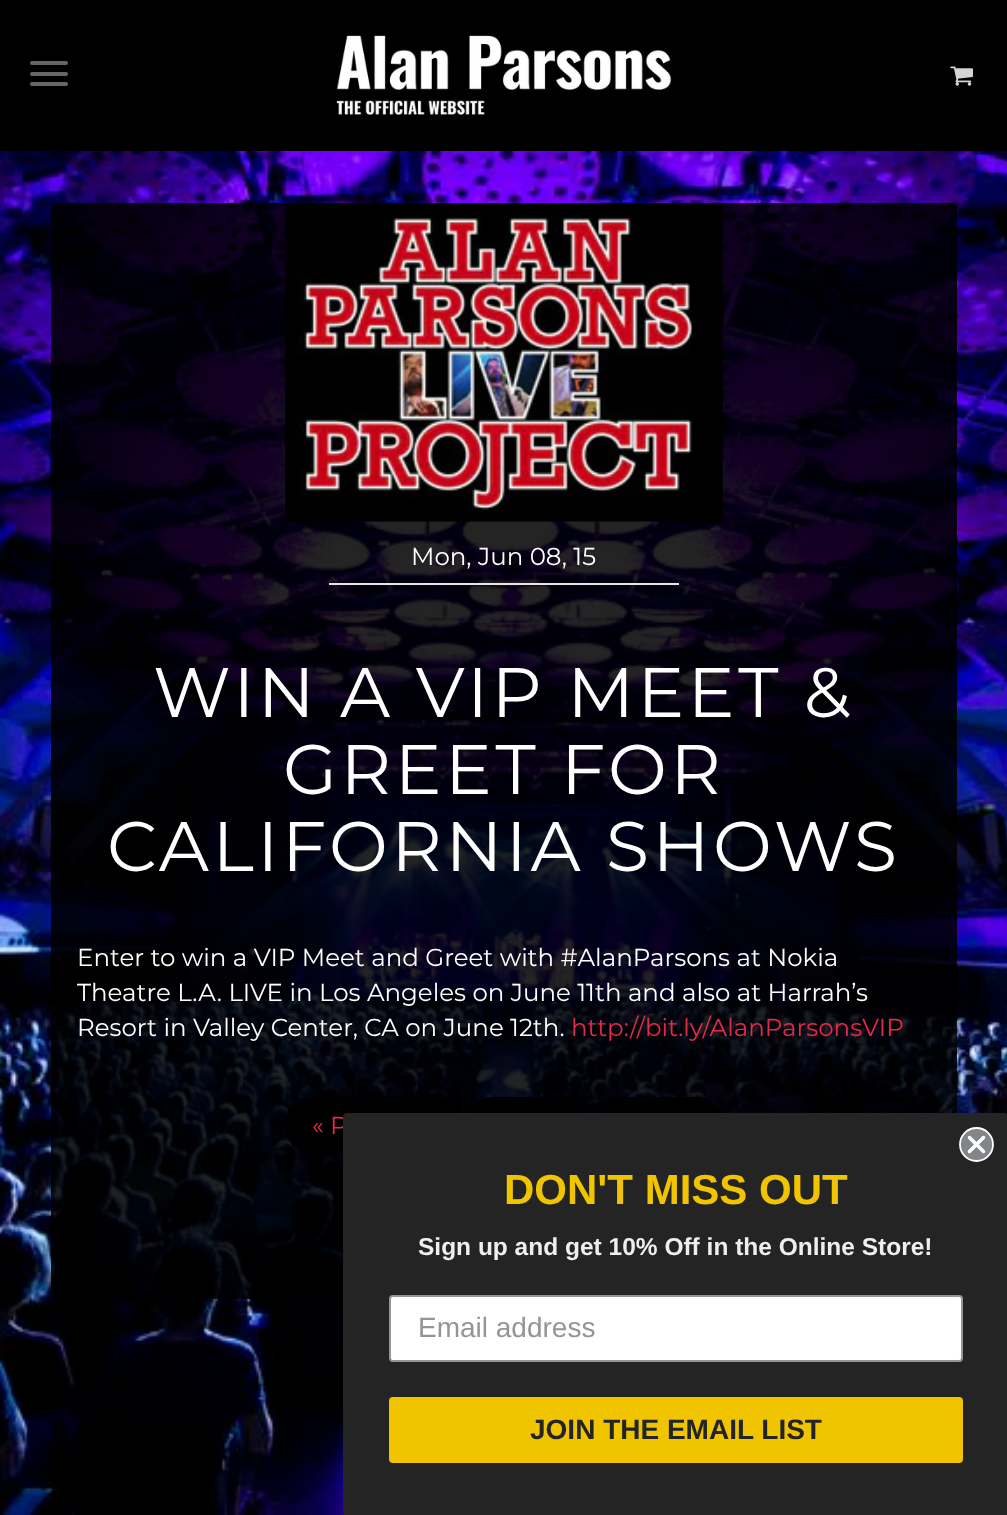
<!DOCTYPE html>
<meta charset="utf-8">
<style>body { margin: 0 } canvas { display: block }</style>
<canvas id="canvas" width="1007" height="1515"></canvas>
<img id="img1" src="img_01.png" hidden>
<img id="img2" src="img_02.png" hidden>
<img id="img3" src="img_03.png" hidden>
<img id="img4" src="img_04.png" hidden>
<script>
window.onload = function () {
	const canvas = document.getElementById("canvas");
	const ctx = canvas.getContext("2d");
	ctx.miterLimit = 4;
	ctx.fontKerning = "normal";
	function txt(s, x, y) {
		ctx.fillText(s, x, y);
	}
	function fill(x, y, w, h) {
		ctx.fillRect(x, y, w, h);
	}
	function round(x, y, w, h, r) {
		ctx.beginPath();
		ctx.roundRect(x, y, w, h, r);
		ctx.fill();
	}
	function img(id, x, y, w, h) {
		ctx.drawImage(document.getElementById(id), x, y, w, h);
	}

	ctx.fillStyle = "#FFFFFF";
	fill(0, 0, 1007, 1515);
	img("img1", 0, 151, 1007, 1364);
	ctx.fillStyle = "#000000";
	fill(0, 0, 1007, 151);
	ctx.fillStyle = "#666666";
	round(30, 61, 38, 4, 2);
	round(30, 72, 38, 4, 2);
	round(30, 82, 38, 4, 2);
	img("img2", 336, 35, 336, 80);
	img("img3", 950, 66, 23, 20);
	ctx.fillStyle = "rgba(0, 0, 0, 0.86)";
	fill(51, 203, 906, 1096);
	img("img4", 285, 203, 438, 319);
	ctx.fillStyle = "#E6E6E6";
	fill(329, 583, 350, 2);
	ctx.fillStyle = "#000000";
	ctx.beginPath();
	ctx.roundRect(286, 1098, 173, 54, 25);
	ctx.fill();
	ctx.strokeStyle = "#000000";
	ctx.lineWidth = 2;
	ctx.stroke();
	ctx.beginPath();
	ctx.roundRect(468, 1098, 119, 54, 25);
	ctx.fill();
	ctx.stroke();
	ctx.beginPath();
	ctx.roundRect(596, 1098, 126, 54, 25);
	ctx.fill();
	ctx.stroke();
	ctx.font = "24.5px Montserrat";
	ctx.fillStyle = "#FFFFFF";
	txt("Mon, Jun 08, 15", 411, 565);
	ctx.letterSpacing = "3.5px";
	ctx.font = "70px Montserrat";
	txt("WIN A VIP MEET &", 153, 717);
	txt("GREET FOR", 283, 794);
	txt("CALIFORNIA SHOWS", 107, 871);
	ctx.letterSpacing = "0px";
	ctx.font = "24.5px Montserrat";
	txt("Enter to win a VIP Meet and Greet with #AlanParsons at Nokia", 77, 966);
	txt("Theatre L.A. LIVE in Los Angeles on June 11th and also at Harrah’s", 77, 1001);
	txt("Resort in Valley Center, CA on June 12th.", 77, 1036);
	ctx.fillStyle = "#E62948";
	txt("http://bit.ly/AlanParsonsVIP", 571, 1036);
	txt("« P", 312, 1134);
	ctx.fillStyle = "#242424";
	round(343, 1113, 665, 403, 4);
	ctx.fillStyle = "#82868B";
	ctx.beginPath();
	ctx.arc(976.5, 1144.5, 16.5, 0, Math.PI * 2);
	ctx.fill();
	ctx.strokeStyle = "#FFFFFF";
	ctx.lineWidth = 1.8;
	ctx.stroke();
	ctx.beginPath();
	ctx.moveTo(969.5, 1137.5);
	ctx.lineTo(983.5, 1151.5);
	ctx.moveTo(969.5, 1151.5);
	ctx.lineTo(983.5, 1137.5);
	ctx.closePath();
	ctx.lineWidth = 3.5;
	ctx.lineCap = "round";
	ctx.lineJoin = "round";
	ctx.stroke();
	ctx.font = "bold 42px Liberation Sans";
	ctx.fillStyle = "#F1C400";
	txt("DON'T MISS OUT", 504, 1204);
	ctx.font = "bold 24.5px Liberation Sans";
	ctx.fillStyle = "#EEEEEE";
	txt("Sign up and get 10% Off in the Online Store!", 418, 1255);
	ctx.fillStyle = "#FFFFFF";
	ctx.beginPath();
	ctx.roundRect(390, 1296, 572, 65, 3);
	ctx.fill();
	ctx.strokeStyle = "#949596";
	ctx.lineWidth = 2;
	ctx.lineJoin = "miter";
	ctx.stroke();
	ctx.font = "28px Liberation Sans";
	ctx.fillStyle = "#949596";
	txt("Email address", 418, 1337);
	ctx.fillStyle = "#F1C400";
	round(389, 1397, 574, 66, 4);
	ctx.font = "bold 28px Liberation Sans";
	ctx.fillStyle = "#242424";
	txt("JOIN THE EMAIL LIST", 530, 1439);
};
</script>
